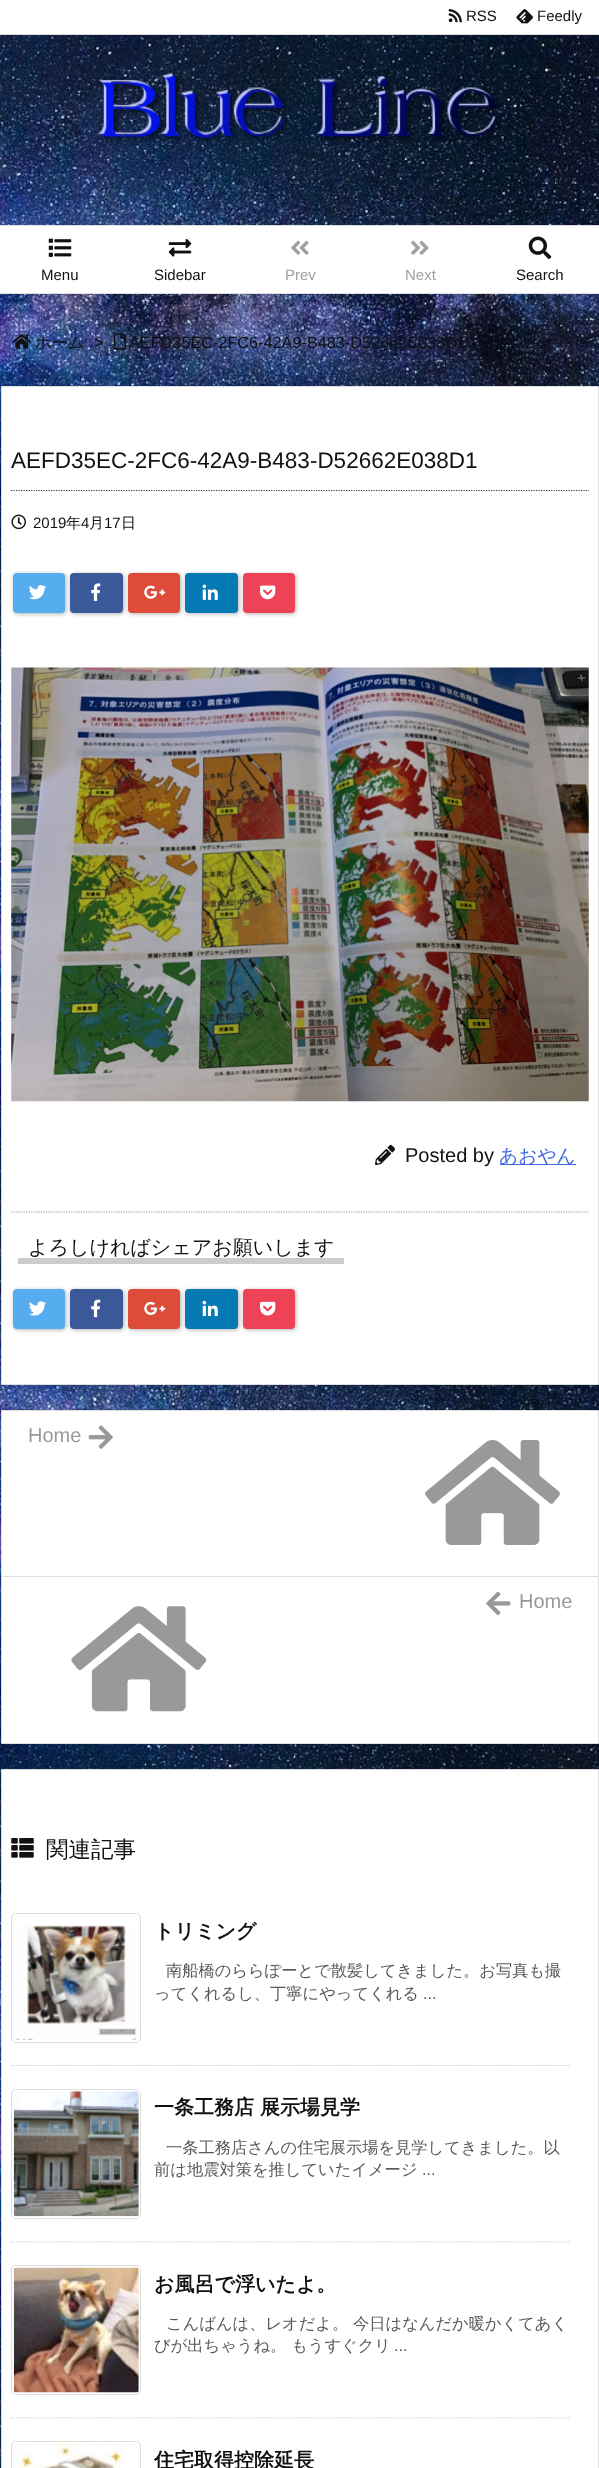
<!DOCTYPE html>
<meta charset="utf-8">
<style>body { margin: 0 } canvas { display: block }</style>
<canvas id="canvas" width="599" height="2468"></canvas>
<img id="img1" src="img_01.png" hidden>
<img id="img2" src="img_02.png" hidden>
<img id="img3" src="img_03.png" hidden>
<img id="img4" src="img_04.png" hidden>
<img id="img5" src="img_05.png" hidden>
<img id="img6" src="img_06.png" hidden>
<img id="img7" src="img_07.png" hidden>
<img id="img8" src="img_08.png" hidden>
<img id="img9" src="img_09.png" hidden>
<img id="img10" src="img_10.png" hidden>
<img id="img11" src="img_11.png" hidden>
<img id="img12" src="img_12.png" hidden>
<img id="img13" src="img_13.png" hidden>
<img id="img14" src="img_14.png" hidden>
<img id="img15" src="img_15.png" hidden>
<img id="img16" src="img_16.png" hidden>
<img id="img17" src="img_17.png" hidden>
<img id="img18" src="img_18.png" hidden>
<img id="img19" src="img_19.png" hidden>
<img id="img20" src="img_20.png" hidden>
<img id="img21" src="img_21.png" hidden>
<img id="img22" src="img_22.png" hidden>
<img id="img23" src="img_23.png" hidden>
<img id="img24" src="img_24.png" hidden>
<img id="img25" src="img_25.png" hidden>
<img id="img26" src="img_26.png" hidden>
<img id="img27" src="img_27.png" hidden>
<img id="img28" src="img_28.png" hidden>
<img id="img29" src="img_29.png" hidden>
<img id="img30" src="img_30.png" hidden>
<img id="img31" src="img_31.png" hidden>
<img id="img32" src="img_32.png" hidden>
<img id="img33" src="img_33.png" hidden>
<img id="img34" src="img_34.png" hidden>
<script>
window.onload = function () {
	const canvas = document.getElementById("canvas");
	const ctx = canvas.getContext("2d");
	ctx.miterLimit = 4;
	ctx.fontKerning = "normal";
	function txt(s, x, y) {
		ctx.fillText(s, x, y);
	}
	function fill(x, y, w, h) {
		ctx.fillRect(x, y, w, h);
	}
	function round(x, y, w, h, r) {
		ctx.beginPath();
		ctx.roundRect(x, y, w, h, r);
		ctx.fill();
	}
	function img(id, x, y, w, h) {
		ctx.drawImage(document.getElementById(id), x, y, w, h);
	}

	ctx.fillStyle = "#FFFFFF";
	fill(0, 0, 599, 2468);
	img("img1", 0, 294, 599, 2174);
	ctx.fillStyle = "#DDDDDD";
	fill(0, 34, 599, 1);
	img("img2", 448, 9, 14, 14);
	img("img3", 516, 9, 17, 15);
	fill(0, 225, 599, 1);
	fill(0, 293, 599, 1);
	img("img4", 48, 238, 24, 19);
	img("img5", 168, 239, 24, 18);
	img("img6", 291, 240, 18, 15);
	img("img7", 411, 240, 18, 15);
	img("img8", 528, 236, 24, 23);
	img("img9", 0, 35, 599, 190);
	img("img10", 97, 72, 405, 71);
	img("img11", 12, 334, 19, 15);
	img("img12", 113, 333, 13, 17);
	ctx.fillStyle = "#FFFFFF";
	ctx.beginPath();
	ctx.rect(1.5, 386.5, 597, 998);
	ctx.fill();
	ctx.strokeStyle = "#DDDDDD";
	ctx.stroke();
	ctx.beginPath();
	ctx.moveTo(11, 490.5);
	ctx.lineTo(589, 490.5);
	ctx.strokeStyle = "#333333";
	ctx.lineWidth = 1.2;
	ctx.setLineDash([1.25, 1.25]);
	ctx.stroke();
	img("img13", 11, 514, 15, 16);
	ctx.fillStyle = "rgba(0, 0, 0, 0.3)";
	ctx.filter = "blur(2px)";
	ctx.beginPath();
	ctx.roundRect(14, 574, 52, 40, 4);
	ctx.fill();
	ctx.filter = "none";
	ctx.fillStyle = "#55ACEE";
	round(13, 573, 52, 40, 4);
	img("img14", 29, 585, 18, 15);
	ctx.fillStyle = "rgba(0, 0, 0, 0.3)";
	ctx.filter = "blur(2px)";
	ctx.beginPath();
	ctx.roundRect(71, 574, 53, 40, 4);
	ctx.fill();
	ctx.filter = "none";
	ctx.fillStyle = "#3B5998";
	round(70, 573, 53, 40, 4);
	img("img15", 91, 583, 10, 18);
	ctx.fillStyle = "rgba(0, 0, 0, 0.3)";
	ctx.filter = "blur(2px)";
	ctx.beginPath();
	ctx.roundRect(129, 574, 52, 40, 4);
	ctx.fill();
	ctx.filter = "none";
	ctx.fillStyle = "#DD4B39";
	round(128, 573, 52, 40, 4);
	img("img16", 144, 585, 22, 14);
	ctx.fillStyle = "rgba(0, 0, 0, 0.3)";
	ctx.filter = "blur(2px)";
	ctx.beginPath();
	ctx.roundRect(186, 574, 53, 40, 4);
	ctx.fill();
	ctx.filter = "none";
	ctx.fillStyle = "#0479B4";
	round(185, 573, 53, 40, 4);
	img("img17", 202, 584, 16, 16);
	ctx.fillStyle = "rgba(0, 0, 0, 0.3)";
	ctx.filter = "blur(2px)";
	ctx.beginPath();
	ctx.roundRect(244, 574, 52, 40, 4);
	ctx.fill();
	ctx.filter = "none";
	ctx.fillStyle = "#EE4257";
	round(243, 573, 52, 40, 4);
	img("img18", 260, 585, 16, 15);
	img("img19", 11, 667, 578, 435);
	img("img20", 375, 1145, 20, 20);
	ctx.fillStyle = "#4169E1";
	fill(500, 1164, 76, 1);
	ctx.beginPath();
	ctx.moveTo(11, 1212);
	ctx.lineTo(589, 1212);
	ctx.strokeStyle = "#999999";
	ctx.stroke();
	ctx.fillStyle = "#CCCCCC";
	fill(18, 1258, 326, 6);
	ctx.fillStyle = "rgba(0, 0, 0, 0.3)";
	ctx.filter = "blur(2px)";
	ctx.beginPath();
	ctx.roundRect(14, 1290, 52, 40, 4);
	ctx.fill();
	ctx.filter = "none";
	ctx.fillStyle = "#55ACEE";
	round(13, 1289, 52, 40, 4);
	img("img21", 29, 1301, 18, 15);
	ctx.fillStyle = "rgba(0, 0, 0, 0.3)";
	ctx.filter = "blur(2px)";
	ctx.beginPath();
	ctx.roundRect(71, 1290, 53, 40, 4);
	ctx.fill();
	ctx.filter = "none";
	ctx.fillStyle = "#3B5998";
	round(70, 1289, 53, 40, 4);
	img("img22", 91, 1299, 10, 19);
	ctx.fillStyle = "rgba(0, 0, 0, 0.3)";
	ctx.filter = "blur(2px)";
	ctx.beginPath();
	ctx.roundRect(129, 1290, 52, 40, 4);
	ctx.fill();
	ctx.filter = "none";
	ctx.fillStyle = "#DD4B39";
	round(128, 1289, 52, 40, 4);
	img("img23", 144, 1301, 22, 14);
	ctx.fillStyle = "rgba(0, 0, 0, 0.3)";
	ctx.filter = "blur(2px)";
	ctx.beginPath();
	ctx.roundRect(186, 1290, 53, 40, 4);
	ctx.fill();
	ctx.filter = "none";
	ctx.fillStyle = "#0479B4";
	round(185, 1289, 53, 40, 4);
	img("img24", 202, 1300, 16, 17);
	ctx.fillStyle = "rgba(0, 0, 0, 0.3)";
	ctx.filter = "blur(2px)";
	ctx.beginPath();
	ctx.roundRect(244, 1290, 52, 40, 4);
	ctx.fill();
	ctx.filter = "none";
	ctx.fillStyle = "#EE4257";
	round(243, 1289, 52, 40, 4);
	img("img25", 260, 1301, 16, 15);
	ctx.fillStyle = "#FFFFFF";
	ctx.beginPath();
	ctx.rect(1.5, 1410.5, 597, 333);
	ctx.fill();
	ctx.strokeStyle = "#DDDDDD";
	ctx.lineWidth = 1;
	ctx.setLineDash([]);
	ctx.stroke();
	ctx.fillStyle = "#DDDDDD";
	fill(3, 1576, 595, 1);
	img("img26", 88, 1425, 25, 24);
	img("img27", 425, 1440, 135, 105);
	img("img28", 486, 1591, 25, 25);
	img("img29", 71, 1606, 136, 106);
	ctx.fillStyle = "#FFFFFF";
	ctx.beginPath();
	ctx.rect(1.5, 1769.5, 597, 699);
	ctx.fill();
	ctx.stroke();
	img("img30", 11, 1838, 23, 20);
	ctx.beginPath();
	ctx.roundRect(11.5, 1913.5, 129, 129, 4.5);
	ctx.stroke();
	img("img31", 15, 1925, 122, 115);
	ctx.beginPath();
	ctx.moveTo(11, 2065.5);
	ctx.lineTo(570, 2065.5);
	ctx.strokeStyle = "#CCCCCC";
	ctx.lineWidth = 1.2;
	ctx.setLineDash([1.25, 1.25]);
	ctx.stroke();
	ctx.beginPath();
	ctx.roundRect(11.5, 2089.5, 129, 129, 4.5);
	ctx.strokeStyle = "#DDDDDD";
	ctx.lineWidth = 1;
	ctx.setLineDash([]);
	ctx.stroke();
	img("img32", 13, 2091, 126, 126);
	ctx.beginPath();
	ctx.moveTo(11, 2242);
	ctx.lineTo(570, 2242);
	ctx.strokeStyle = "#CCCCCC";
	ctx.lineWidth = 1.2;
	ctx.setLineDash([1.25, 1.25]);
	ctx.stroke();
	ctx.beginPath();
	ctx.roundRect(11.5, 2265.5, 129, 129, 4.5);
	ctx.strokeStyle = "#DDDDDD";
	ctx.lineWidth = 1;
	ctx.setLineDash([]);
	ctx.stroke();
	img("img33", 13, 2267, 126, 126);
	ctx.beginPath();
	ctx.moveTo(11, 2418);
	ctx.lineTo(570, 2418);
	ctx.strokeStyle = "#CCCCCC";
	ctx.lineWidth = 1.2;
	ctx.setLineDash([1.25, 1.25]);
	ctx.stroke();
	ctx.beginPath();
	ctx.roundRect(11.5, 2441.5, 129, 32, 4.5);
	ctx.strokeStyle = "#DDDDDD";
	ctx.lineWidth = 1;
	ctx.setLineDash([]);
	ctx.stroke();
	img("img34", 14, 2444, 120, 24);
	ctx.font = "15px Liberation Sans";
	ctx.fillStyle = "#111111";
	txt("RSS", 466, 21);
	txt("Feedly", 537, 21);
	txt("Menu", 41, 280);
	txt("Sidebar", 154, 280);
	ctx.fillStyle = "#A0A0A0";
	txt("Prev", 285, 280);
	txt("Next", 405, 280);
	ctx.fillStyle = "#111111";
	txt("Search", 516, 280);
	ctx.font = "500 16.25px WenQuanYi Zen Hei";
	txt("ホーム", 35, 348);
	ctx.font = "italic 16.25px Liberation Sans";
	txt(">", 94, 348);
	ctx.font = "16.25px Liberation Sans";
	txt("AEFD35EC-2FC6-42A9-B483-D52662E038D1", 129, 348);
	ctx.font = "22.5px Liberation Sans";
	txt("AEFD35EC-2FC6-42A9-B483-D52662E038D1", 11, 468);
	ctx.font = "15px Liberation Sans";
	txt("2019", 33, 528);
	ctx.font = "500 15px WenQuanYi Zen Hei";
	txt("年", 66, 528);
	ctx.font = "15px Liberation Sans";
	txt("4", 81, 528);
	ctx.font = "500 15px WenQuanYi Zen Hei";
	txt("月", 89, 528);
	ctx.font = "15px Liberation Sans";
	txt("17", 104, 528);
	ctx.font = "500 15px WenQuanYi Zen Hei";
	txt("日", 121, 528);
	ctx.font = "20px Liberation Sans";
	txt("Posted by", 405, 1162);
	ctx.font = "500 18.75px WenQuanYi Zen Hei";
	ctx.fillStyle = "#4169E1";
	txt("あおやん", 499, 1162);
	ctx.font = "500 20px WenQuanYi Zen Hei";
	ctx.fillStyle = "#111111";
	txt("よろしければシェアお願いします", 28, 1254);
	ctx.font = "20px Liberation Sans";
	ctx.fillStyle = "#999999";
	txt("Home", 28, 1442);
	txt("Home", 519, 1608);
	ctx.font = "500 22.5px WenQuanYi Zen Hei";
	ctx.fillStyle = "#111111";
	txt("関連記事", 46, 1857);
	ctx.font = "bold 20px WenQuanYi Zen Hei";
	txt("トリミング", 154, 1938);
	ctx.font = "500 16.25px WenQuanYi Zen Hei";
	ctx.fillStyle = "#585858";
	txt("南船橋のららぽーとで散髪してきました。お写真も撮", 166, 1976);
	txt("ってくれるし、丁寧にやってくれる", 154, 1999);
	ctx.font = "16.25px Liberation Sans";
	txt("...", 423, 1999);
	ctx.font = "bold 20px WenQuanYi Zen Hei";
	ctx.fillStyle = "#111111";
	txt("一条工務店 展示場見学", 154, 2114);
	ctx.font = "500 16.25px WenQuanYi Zen Hei";
	ctx.fillStyle = "#585858";
	txt("一条工務店さんの住宅展示場を見学してきました。以", 166, 2153);
	txt("前は地震対策を推していたイメージ", 154, 2175);
	ctx.font = "16.25px Liberation Sans";
	txt("...", 422, 2175);
	ctx.font = "bold 20px WenQuanYi Zen Hei";
	ctx.fillStyle = "#111111";
	txt("お風呂で浮いたよ。", 154, 2291);
	ctx.font = "500 16.25px WenQuanYi Zen Hei";
	ctx.fillStyle = "#585858";
	txt("こんばんは、レオだよ。 今日はなんだか暖かくてあく", 166, 2329);
	txt("びが出ちゃうね。 もうすぐクリ", 154, 2351);
	ctx.font = "16.25px Liberation Sans";
	txt("...", 394, 2351);
	ctx.font = "bold 20px WenQuanYi Zen Hei";
	ctx.fillStyle = "#111111";
	txt("住宅取得控除延長", 154, 2467);
};
</script>
